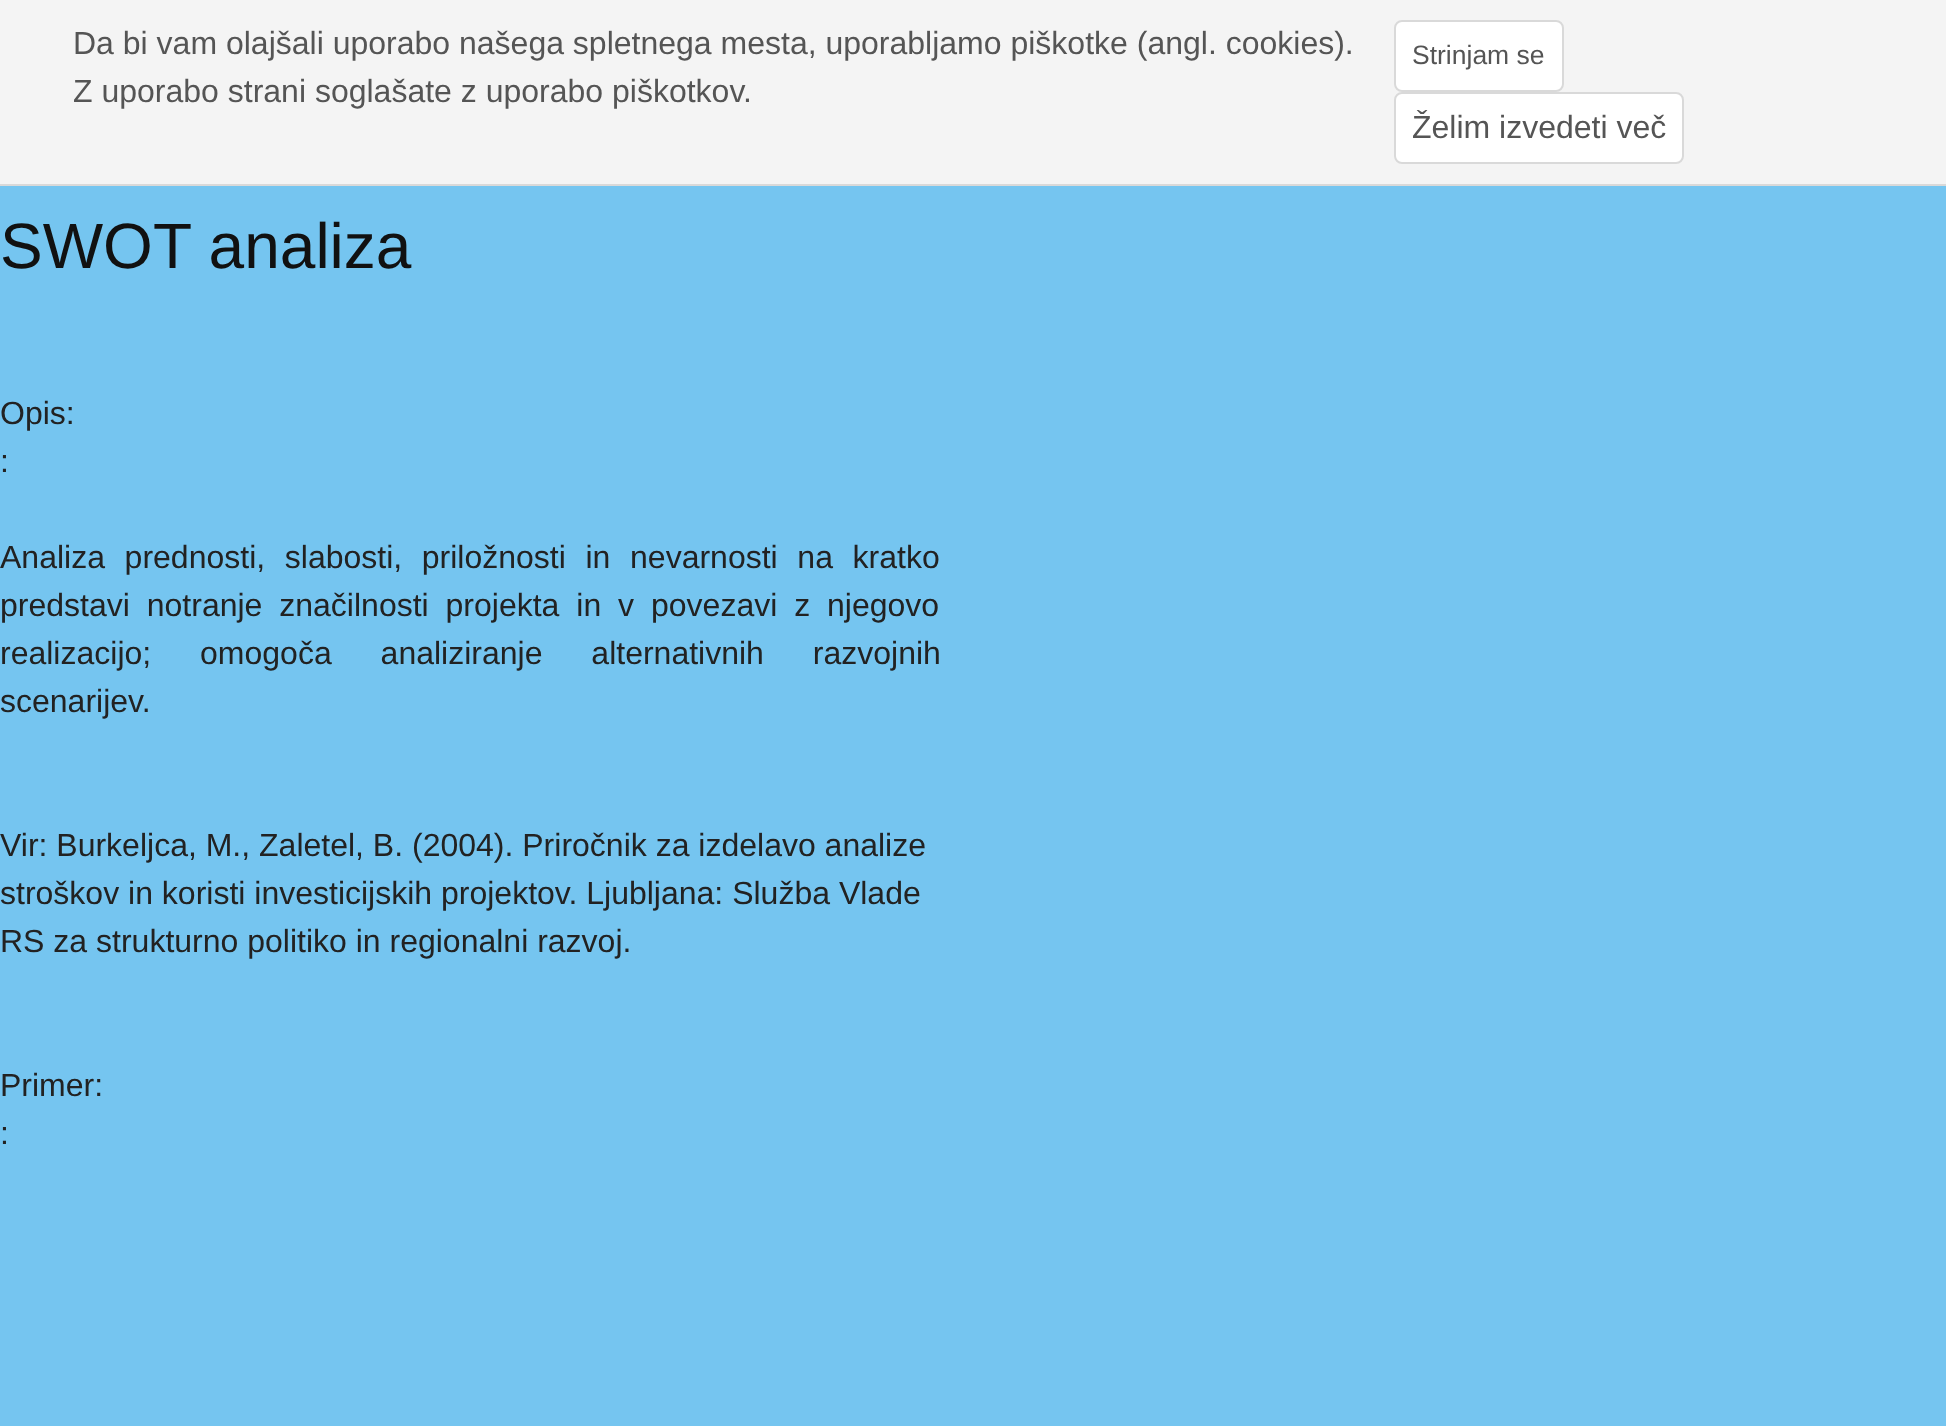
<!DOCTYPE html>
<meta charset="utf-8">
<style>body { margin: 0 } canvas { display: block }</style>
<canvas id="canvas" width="1946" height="1426"></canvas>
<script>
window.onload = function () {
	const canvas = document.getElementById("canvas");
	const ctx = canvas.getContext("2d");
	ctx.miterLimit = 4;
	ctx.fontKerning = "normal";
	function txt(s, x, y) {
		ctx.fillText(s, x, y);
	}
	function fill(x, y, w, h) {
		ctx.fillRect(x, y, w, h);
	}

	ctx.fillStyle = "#75C5F0";
	fill(0, 0, 1946, 1426);
	ctx.fillStyle = "#F4F4F4";
	fill(0, 0, 1946, 184);
	ctx.fillStyle = "#D9D9D9";
	fill(0, 184, 1946, 2);
	ctx.fillStyle = "#FFFFFF";
	ctx.beginPath();
	ctx.roundRect(1395, 21, 168, 70, 7);
	ctx.fill();
	ctx.strokeStyle = "#D9D9D9";
	ctx.lineWidth = 2;
	ctx.stroke();
	ctx.beginPath();
	ctx.roundRect(1395, 93, 288, 70, 7);
	ctx.fill();
	ctx.stroke();
	ctx.font = "32px Liberation Sans";
	ctx.fillStyle = "#555555";
	txt("Da bi vam olajšali uporabo našega spletnega mesta, uporabljamo piškotke (angl. cookies).", 73, 54);
	txt("Z uporabo strani soglašate z uporabo piškotkov.", 73, 102);
	ctx.font = "26.5px Liberation Sans";
	txt("Strinjam se", 1412, 64);
	ctx.font = "32px Liberation Sans";
	txt("Želim izvedeti več", 1412, 138);
	ctx.font = "64px Liberation Sans";
	ctx.fillStyle = "#111111";
	txt("SWOT analiza", 0, 268);
	ctx.font = "32px Liberation Sans";
	ctx.fillStyle = "#222222";
	txt("Opis:", 0, 424);
	txt(":", 0, 472);
	ctx.wordSpacing = "10.75px";
	txt("Analiza prednosti, slabosti, priložnosti in nevarnosti na kratko", 0, 568);
	ctx.wordSpacing = "8px";
	txt("predstavi notranje značilnosti projekta in v povezavi z njegovo", 0, 616);
	ctx.wordSpacing = "40px";
	txt("realizacijo; omogoča analiziranje alternativnih razvojnih", 0, 664);
	ctx.wordSpacing = "0px";
	txt("scenarijev.", 0, 712);
	txt("Vir: Burkeljca, M., Zaletel, B. (2004). Priročnik za izdelavo analize", 0, 856);
	txt("stroškov in koristi investicijskih projektov. Ljubljana: Služba Vlade", 0, 904);
	txt("RS za strukturno politiko in regionalni razvoj.", 0, 952);
	txt("Primer:", 0, 1096);
	txt(":", 0, 1144);
};
</script>
